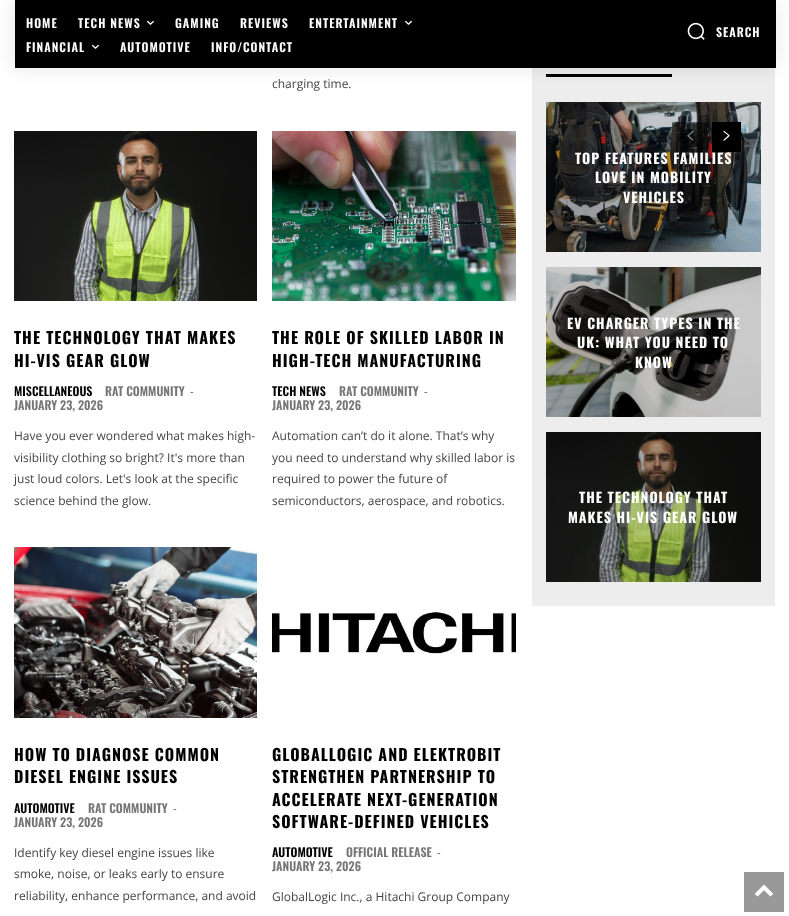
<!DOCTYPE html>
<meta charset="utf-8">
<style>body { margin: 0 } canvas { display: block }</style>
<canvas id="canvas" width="789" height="916"></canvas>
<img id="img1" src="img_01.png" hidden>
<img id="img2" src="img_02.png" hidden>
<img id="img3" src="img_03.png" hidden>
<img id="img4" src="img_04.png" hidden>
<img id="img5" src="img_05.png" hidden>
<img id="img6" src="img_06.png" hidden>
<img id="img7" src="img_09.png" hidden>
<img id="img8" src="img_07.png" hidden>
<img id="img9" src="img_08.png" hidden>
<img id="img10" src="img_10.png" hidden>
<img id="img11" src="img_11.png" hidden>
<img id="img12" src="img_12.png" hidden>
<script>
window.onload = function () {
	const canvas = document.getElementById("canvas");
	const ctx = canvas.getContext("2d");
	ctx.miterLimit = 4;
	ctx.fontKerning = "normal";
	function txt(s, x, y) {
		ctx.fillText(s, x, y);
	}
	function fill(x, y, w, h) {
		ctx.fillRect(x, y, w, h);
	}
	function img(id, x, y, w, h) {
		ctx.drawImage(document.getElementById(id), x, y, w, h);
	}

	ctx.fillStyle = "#FFFFFF";
	fill(0, 0, 789, 916);
	ctx.fillStyle = "#EDEDED";
	fill(532, 68, 243, 538);
	ctx.fillStyle = "#000000";
	fill(546, 74, 126, 3);
	ctx.fillStyle = "rgba(0, 0, 0, 0.1)";
	ctx.filter = "blur(10px)";
	ctx.beginPath();
	ctx.rect(14, 0, 761, 68);
	ctx.fill();
	ctx.filter = "none";
	ctx.fillStyle = "#000000";
	fill(15, 0, 761, 68);
	img("img1", 147, 20, 7, 5);
	img("img1", 405, 20, 7, 5);
	img("img1", 92, 44, 7, 5);
	img("img2", 687, 22, 18, 18);
	img("img3", 14, 131, 243, 170);
	img("img4", 272, 131, 244, 170);
	img("img5", 14, 547, 243, 171);
	img("img6", 272, 612, 244, 76);
	img("img7", 546, 102, 215, 150);
	ctx.fillStyle = "rgba(0, 0, 0, 0.5)";
	fill(676, 122, 29, 30);
	img("img8", 687, 130, 7, 11);
	ctx.fillStyle = "#000000";
	fill(712, 122, 29, 30);
	img("img9", 723, 130, 7, 11);
	img("img10", 546, 267, 215, 150);
	img("img11", 546, 432, 215, 150);
	ctx.fillStyle = "#999999";
	fill(744, 872, 40, 40);
	img("img12", 755, 884, 18, 13);
	ctx.letterSpacing = "1px";
	ctx.font = "600 12px Oswald";
	ctx.fillStyle = "#FFFFFF";
	txt("HOME", 26, 28);
	txt("TECH NEWS", 78, 28);
	txt("GAMING", 175, 28);
	txt("REVIEWS", 240, 28);
	txt("ENTERTAINMENT", 309, 28);
	txt("FINANCIAL", 26, 52);
	txt("AUTOMOTIVE", 120, 52);
	txt("INFO/CONTACT", 211, 52);
	txt("SEARCH", 716, 37);
	ctx.letterSpacing = "0px";
	ctx.font = "12px Open Sans";
	ctx.fillStyle = "#444444";
	txt("charging time.", 272, 88);
	ctx.letterSpacing = "1px";
	ctx.font = "bold 16px Oswald";
	ctx.fillStyle = "#000000";
	txt("THE TECHNOLOGY THAT MAKES", 14, 344);
	txt("HI-VIS GEAR GLOW", 14, 367);
	ctx.letterSpacing = "0px";
	ctx.font = "600 12px Oswald";
	txt("MISCELLANEOUS", 14, 396);
	ctx.fillStyle = "#767676";
	txt("RAT COMMUNITY", 105, 396);
	ctx.font = "12px Oswald";
	txt("-", 190, 396);
	ctx.font = "600 12px Oswald";
	txt("JANUARY 23, 2026", 14, 410);
	ctx.font = "12px Open Sans";
	ctx.fillStyle = "#444444";
	txt("Have you ever wondered what makes high-", 14, 440);
	txt("visibility clothing so bright? It's more than", 14, 462);
	txt("just loud colors. Let's look at the specific", 14, 483);
	txt("science behind the glow.", 14, 505);
	ctx.letterSpacing = "1px";
	ctx.font = "bold 16px Oswald";
	ctx.fillStyle = "#000000";
	txt("THE ROLE OF SKILLED LABOR IN", 272, 344);
	txt("HIGH-TECH MANUFACTURING", 272, 367);
	ctx.letterSpacing = "0px";
	ctx.font = "600 12px Oswald";
	txt("TECH NEWS", 272, 396);
	ctx.fillStyle = "#767676";
	txt("RAT COMMUNITY", 339, 396);
	ctx.font = "12px Oswald";
	txt("-", 424, 396);
	ctx.font = "600 12px Oswald";
	txt("JANUARY 23, 2026", 272, 410);
	ctx.font = "12px Open Sans";
	ctx.fillStyle = "#444444";
	txt("Automation can’t do it alone. That’s why", 272, 440);
	txt("you need to understand why skilled labor is", 272, 462);
	txt("required to power the future of", 272, 483);
	txt("semiconductors, aerospace, and robotics.", 272, 505);
	ctx.letterSpacing = "1px";
	ctx.font = "bold 16px Oswald";
	ctx.fillStyle = "#000000";
	txt("HOW TO DIAGNOSE COMMON", 14, 761);
	txt("DIESEL ENGINE ISSUES", 14, 783);
	ctx.letterSpacing = "0px";
	ctx.font = "600 12px Oswald";
	txt("AUTOMOTIVE", 14, 813);
	ctx.fillStyle = "#767676";
	txt("RAT COMMUNITY", 88, 813);
	ctx.font = "12px Oswald";
	txt("-", 173, 813);
	ctx.font = "600 12px Oswald";
	txt("JANUARY 23, 2026", 14, 827);
	ctx.font = "12px Open Sans";
	ctx.fillStyle = "#444444";
	txt("Identify key diesel engine issues like", 14, 857);
	txt("smoke, noise, or leaks early to ensure", 14, 878);
	txt("reliability, enhance performance, and avoid", 14, 900);
	ctx.letterSpacing = "1px";
	ctx.font = "bold 16px Oswald";
	ctx.fillStyle = "#000000";
	txt("GLOBALLOGIC AND ELEKTROBIT", 272, 761);
	txt("STRENGTHEN PARTNERSHIP TO", 272, 783);
	txt("ACCELERATE NEXT-GENERATION", 272, 806);
	txt("SOFTWARE-DEFINED VEHICLES", 272, 828);
	ctx.letterSpacing = "0px";
	ctx.font = "600 12px Oswald";
	txt("AUTOMOTIVE", 272, 857);
	ctx.fillStyle = "#767676";
	txt("OFFICIAL RELEASE", 346, 857);
	ctx.font = "12px Oswald";
	txt("-", 437, 857);
	ctx.font = "600 12px Oswald";
	txt("JANUARY 23, 2026", 272, 871);
	ctx.font = "12px Open Sans";
	ctx.fillStyle = "#444444";
	txt("GlobalLogic Inc., a Hitachi Group Company", 272, 901);
	ctx.letterSpacing = "1px";
	ctx.font = "bold 14px Oswald";
	ctx.fillStyle = "#FFFFFF";
	txt("TOP FEATURES FAMILIES", 575, 164);
	txt("LOVE IN MOBILITY", 595, 183);
	txt("VEHICLES", 623, 203);
	txt("EV CHARGER TYPES IN THE", 567, 329);
	txt("UK: WHAT YOU NEED TO", 577, 348);
	txt("KNOW", 635, 368);
	txt("THE TECHNOLOGY THAT", 579, 503);
	txt("MAKES HI-VIS GEAR GLOW", 568, 523);
};
</script>
